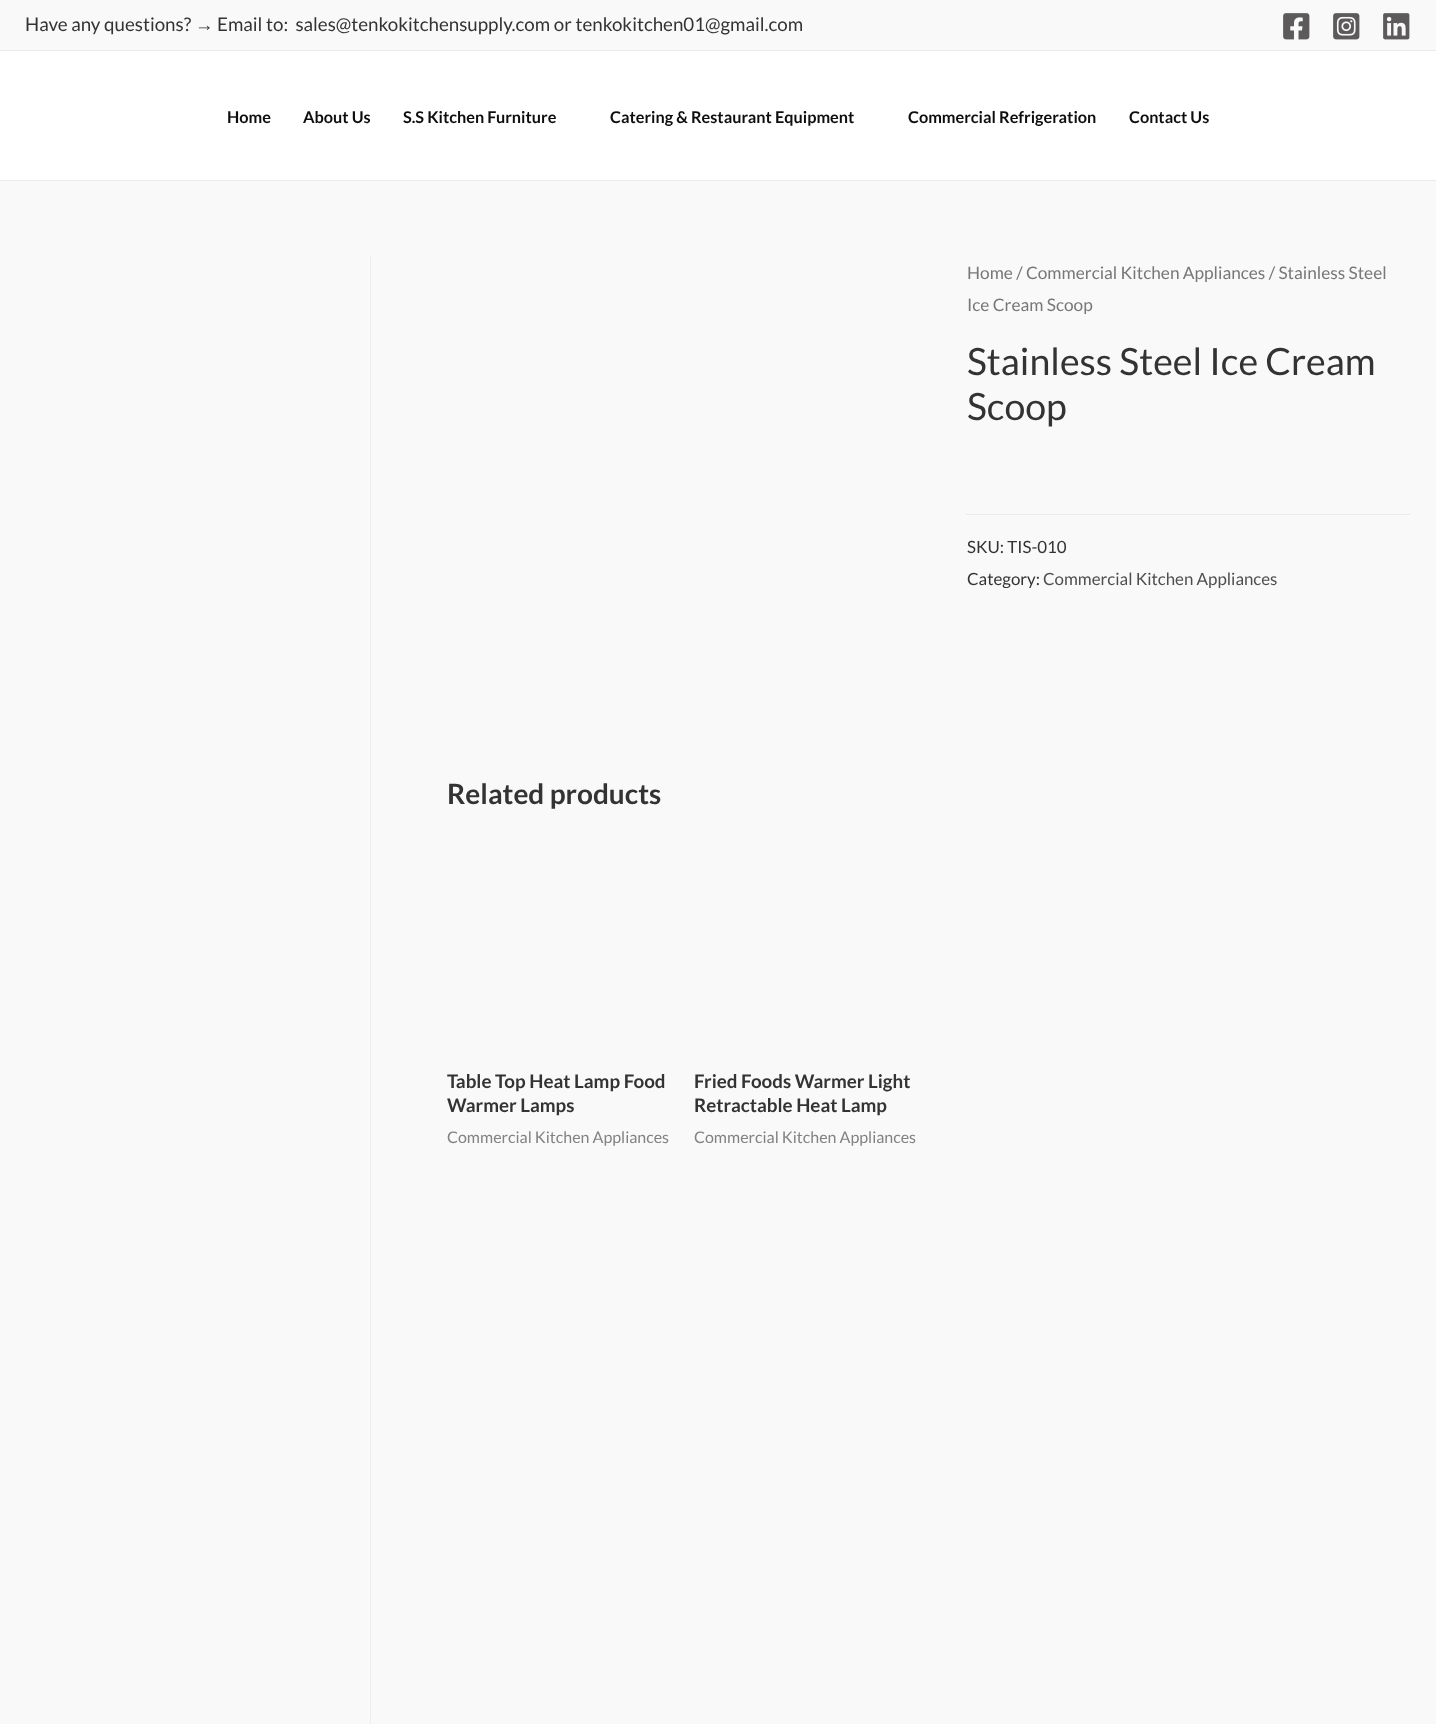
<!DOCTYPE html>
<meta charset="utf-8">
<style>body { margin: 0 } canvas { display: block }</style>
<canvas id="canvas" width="1436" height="1724"></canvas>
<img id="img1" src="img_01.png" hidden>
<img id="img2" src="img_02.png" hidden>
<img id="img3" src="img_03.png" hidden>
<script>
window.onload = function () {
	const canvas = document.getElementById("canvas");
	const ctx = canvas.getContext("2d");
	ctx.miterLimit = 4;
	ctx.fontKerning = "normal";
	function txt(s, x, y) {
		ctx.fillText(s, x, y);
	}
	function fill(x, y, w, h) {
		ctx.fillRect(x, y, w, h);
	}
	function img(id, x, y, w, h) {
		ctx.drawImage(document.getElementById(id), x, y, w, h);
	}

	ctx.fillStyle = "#F9F9F9";
	fill(0, 0, 1436, 1724);
	ctx.fillStyle = "#EAEAEA";
	fill(0, 50, 1436, 1);
	img("img1", 1283, 13, 27, 27);
	img("img2", 1333, 13, 27, 27);
	img("img3", 1383, 13, 27, 27);
	ctx.fillStyle = "#FFFFFF";
	fill(0, 51, 1436, 129);
	ctx.fillStyle = "#EAEAEA";
	fill(0, 180, 1436, 1);
	ctx.fillStyle = "#EEEEEE";
	fill(370, 256, 1, 1468);
	ctx.fillStyle = "#EBEBEB";
	fill(966, 514, 444, 1);
	ctx.font = "18.75px Lato";
	ctx.fillStyle = "#333333";
	txt("Have any questions?", 25, 31);
	ctx.font = "18.75px Liberation Sans";
	txt("→", 195, 31);
	ctx.font = "18.75px Lato";
	txt("Email to:  sales@tenkokitchensupply.com or tenkokitchen01@gmail.com", 217, 31);
	ctx.font = "bold 16.25px Lato";
	ctx.fillStyle = "#0F0E0E";
	txt("Home", 227, 123);
	txt("About Us", 303, 123);
	txt("S.S Kitchen Furniture", 403, 123);
	txt("Catering & Restaurant Equipment", 610, 123);
	txt("Commercial Refrigeration", 908, 123);
	txt("Contact Us", 1129, 123);
	ctx.font = "17.25px Lato";
	ctx.fillStyle = "#777777";
	txt("Home / Commercial Kitchen Appliances / Stainless Steel", 967, 279);
	txt("Ice Cream Scoop", 967, 311);
	ctx.font = "37.5px Lato";
	ctx.fillStyle = "#333333";
	txt("Stainless Steel Ice Cream", 967, 375);
	txt("Scoop", 967, 420);
	ctx.font = "16.9px Lato";
	txt("SKU: TIS-010", 967, 553);
	txt("Category:", 967, 585);
	ctx.fillStyle = "#4E4E4E";
	txt("Commercial Kitchen Appliances", 1043, 585);
	ctx.font = "bold 28px Lato";
	ctx.fillStyle = "#333333";
	txt("Related products", 447, 804);
	ctx.font = "bold 18.75px Lato";
	txt("Table Top Heat Lamp Food", 447, 1088);
	txt("Warmer Lamps", 447, 1112);
	ctx.font = "16px Lato";
	ctx.fillStyle = "#828282";
	txt("Commercial Kitchen Appliances", 447, 1143);
	ctx.font = "bold 18.75px Lato";
	ctx.fillStyle = "#333333";
	txt("Fried Foods Warmer Light", 694, 1088);
	txt("Retractable Heat Lamp", 694, 1112);
	ctx.font = "16px Lato";
	ctx.fillStyle = "#828282";
	txt("Commercial Kitchen Appliances", 694, 1143);
};
</script>
